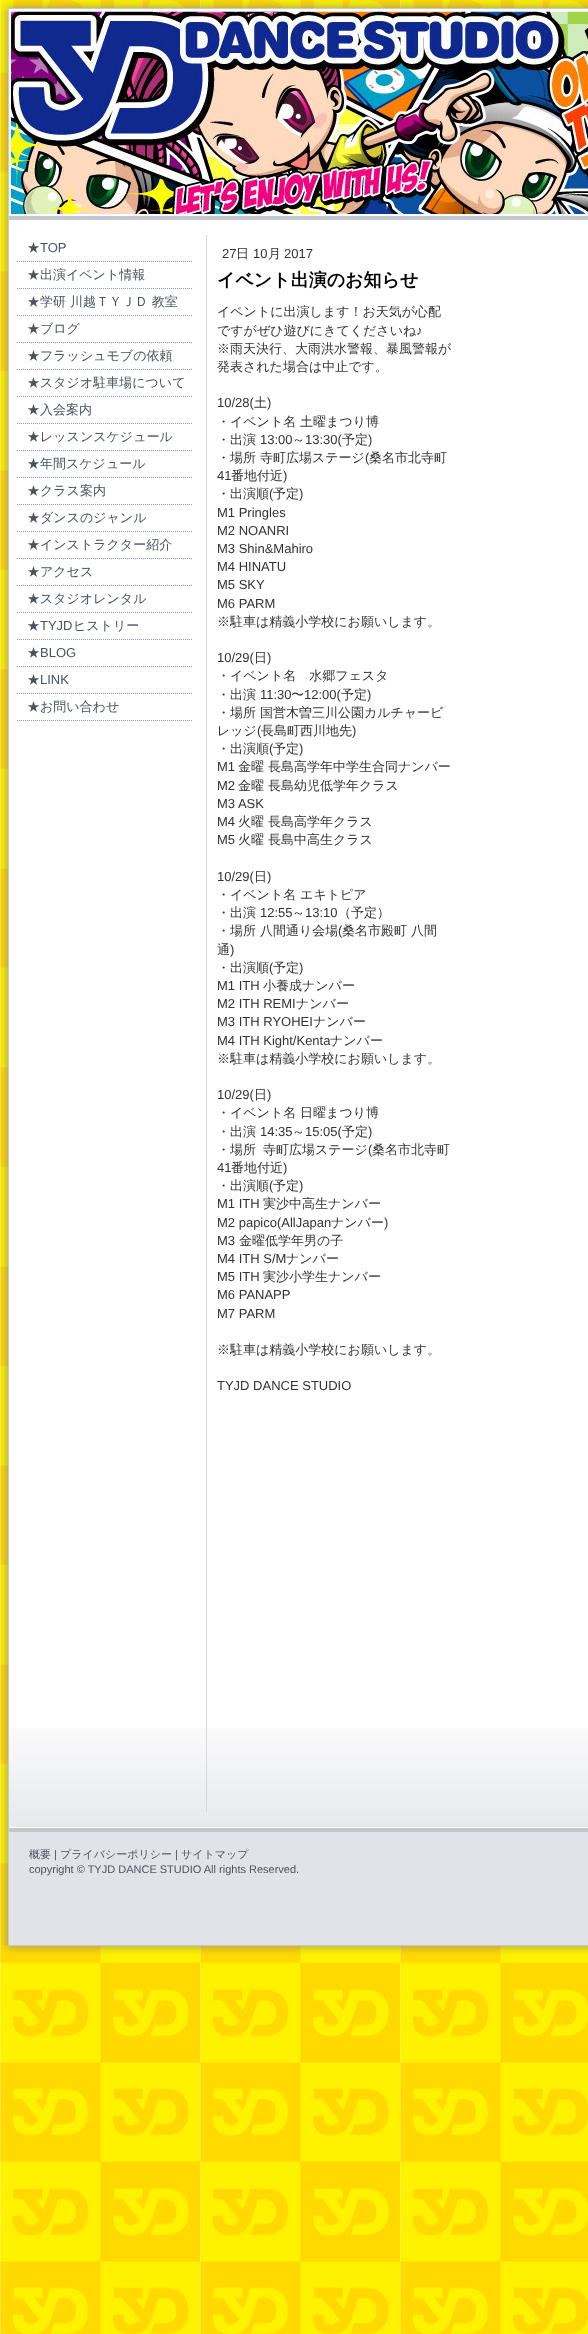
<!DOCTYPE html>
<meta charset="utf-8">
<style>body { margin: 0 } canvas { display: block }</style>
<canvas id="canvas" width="588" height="2334"></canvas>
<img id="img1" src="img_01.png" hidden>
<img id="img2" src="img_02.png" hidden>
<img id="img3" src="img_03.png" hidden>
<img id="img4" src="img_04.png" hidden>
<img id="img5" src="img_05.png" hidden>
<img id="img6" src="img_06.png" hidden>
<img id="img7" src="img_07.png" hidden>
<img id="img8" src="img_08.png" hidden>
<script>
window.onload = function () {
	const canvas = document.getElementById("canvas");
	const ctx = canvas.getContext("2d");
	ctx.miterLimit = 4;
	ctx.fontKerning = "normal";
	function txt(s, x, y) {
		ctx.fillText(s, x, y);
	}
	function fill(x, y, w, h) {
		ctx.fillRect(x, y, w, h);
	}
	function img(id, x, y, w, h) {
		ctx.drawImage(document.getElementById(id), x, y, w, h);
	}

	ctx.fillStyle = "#FFFFFF";
	fill(0, 0, 588, 2334);
	img("img1", 0, 0, 588, 2334);
	img("img2", 0, 0, 588, 11);
	img("img3", 0, 11, 588, 1934);
	ctx.fillStyle = "#C2C6CD";
	fill(9, 216, 579, 4);
	img("img4", 11, 11, 577, 203);
	img("img5", 9, 1728, 579, 99);
	ctx.fillStyle = "#D5D7DD";
	fill(206, 235, 1, 1577);
	img("img6", 17, 261, 175, 1);
	img("img6", 17, 288, 175, 1);
	img("img6", 17, 315, 175, 1);
	img("img6", 17, 342, 175, 1);
	img("img6", 17, 369, 175, 1);
	img("img6", 17, 396, 175, 1);
	img("img6", 17, 423, 175, 1);
	img("img6", 17, 450, 175, 1);
	img("img6", 17, 477, 175, 1);
	img("img6", 17, 504, 175, 1);
	img("img6", 17, 531, 175, 1);
	img("img6", 17, 558, 175, 1);
	img("img6", 17, 585, 175, 1);
	img("img6", 17, 612, 175, 1);
	img("img6", 17, 639, 175, 1);
	img("img6", 17, 666, 175, 1);
	img("img6", 17, 693, 175, 1);
	img("img6", 17, 720, 175, 1);
	img("img7", 9, 1828, 579, 117);
	img("img8", 0, 1945, 588, 10);
	ctx.font = "500 13px WenQuanYi Zen Hei";
	ctx.fillStyle = "#4B525C";
	txt("★", 27, 252);
	ctx.font = "13px Liberation Sans";
	txt("TOP", 40, 252);
	ctx.font = "500 13px WenQuanYi Zen Hei";
	txt("★出演イベント情報", 27, 279);
	txt("★学研 川越ＴＹＪＤ 教室", 27, 306);
	txt("★ブログ", 27, 333);
	txt("★フラッシュモブの依頼", 27, 360);
	txt("★スタジオ駐車場について", 27, 387);
	txt("★入会案内", 27, 414);
	txt("★レッスンスケジュール", 27, 441);
	txt("★年間スケジュール", 27, 468);
	txt("★クラス案内", 27, 495);
	txt("★ダンスのジャンル", 27, 522);
	txt("★インストラクター紹介", 27, 549);
	txt("★アクセス", 27, 576);
	txt("★スタジオレンタル", 27, 603);
	txt("★", 27, 630);
	ctx.font = "13px Liberation Sans";
	txt("TYJD", 40, 630);
	ctx.font = "500 13px WenQuanYi Zen Hei";
	txt("ヒストリー", 73, 630);
	txt("★", 27, 657);
	ctx.font = "13px Liberation Sans";
	txt("BLOG", 40, 657);
	ctx.font = "500 13px WenQuanYi Zen Hei";
	txt("★", 27, 684);
	ctx.font = "13px Liberation Sans";
	txt("LINK", 40, 684);
	ctx.font = "500 13px WenQuanYi Zen Hei";
	txt("★お問い合わせ", 27, 711);
	ctx.font = "13px Liberation Sans";
	ctx.fillStyle = "#333333";
	txt("27", 222, 258);
	ctx.font = "500 13px WenQuanYi Zen Hei";
	txt("日", 236, 258);
	ctx.font = "13px Liberation Sans";
	txt("10", 253, 258);
	ctx.font = "500 13px WenQuanYi Zen Hei";
	txt("月", 268, 258);
	ctx.font = "13px Liberation Sans";
	txt("2017", 284, 258);
	ctx.font = "bold 18px WenQuanYi Zen Hei";
	ctx.fillStyle = "#000000";
	txt("イベント出演のお知らせ", 217, 286);
	ctx.font = "500 13px WenQuanYi Zen Hei";
	ctx.fillStyle = "#333333";
	txt("イベントに出演します！お天気が心配", 217, 316);
	txt("ですがぜひ遊びにきてくださいね", 217, 335);
	ctx.font = "13px Liberation Sans";
	txt("♪", 416, 335);
	ctx.font = "500 13px WenQuanYi Zen Hei";
	txt("※雨天決行、大雨洪水警報、暴風警報が", 217, 353);
	txt("発表された場合は中止です。", 217, 371);
	ctx.font = "13px Liberation Sans";
	txt("10/28(", 217, 407);
	ctx.font = "500 13px WenQuanYi Zen Hei";
	txt("土", 254, 407);
	ctx.font = "13px Liberation Sans";
	txt(")", 267, 407);
	ctx.font = "500 13px WenQuanYi Zen Hei";
	txt("・イベント名 土曜まつり博", 217, 426);
	txt("・出演", 217, 444);
	ctx.font = "13px Liberation Sans";
	txt("13:00", 260, 444);
	ctx.font = "500 13px WenQuanYi Zen Hei";
	txt("～", 292, 444);
	ctx.font = "13px Liberation Sans";
	txt("13:30(", 305, 444);
	ctx.font = "500 13px WenQuanYi Zen Hei";
	txt("予定", 342, 444);
	ctx.font = "13px Liberation Sans";
	txt(")", 368, 444);
	ctx.font = "500 13px WenQuanYi Zen Hei";
	txt("・場所 寺町広場ステージ", 217, 462);
	ctx.font = "13px Liberation Sans";
	txt("(", 365, 462);
	ctx.font = "500 13px WenQuanYi Zen Hei";
	txt("桑名市北寺町", 369, 462);
	ctx.font = "13px Liberation Sans";
	txt("41", 217, 480);
	ctx.font = "500 13px WenQuanYi Zen Hei";
	txt("番地付近", 231, 480);
	ctx.font = "13px Liberation Sans";
	txt(")", 283, 480);
	ctx.font = "500 13px WenQuanYi Zen Hei";
	txt("・出演順", 217, 498);
	ctx.font = "13px Liberation Sans";
	txt("(", 269, 498);
	ctx.font = "500 13px WenQuanYi Zen Hei";
	txt("予定", 273, 498);
	ctx.font = "13px Liberation Sans";
	txt(")", 299, 498);
	txt("M1 Pringles", 217, 517);
	txt("M2 NOANRI", 217, 535);
	txt("M3 Shin&Mahiro", 217, 553);
	txt("M4 HINATU", 217, 571);
	txt("M5 SKY", 217, 589);
	txt("M6 PARM", 217, 608);
	ctx.font = "500 13px WenQuanYi Zen Hei";
	txt("※駐車は精義小学校にお願いします。", 217, 626);
	ctx.font = "13px Liberation Sans";
	txt("10/29(", 217, 662);
	ctx.font = "500 13px WenQuanYi Zen Hei";
	txt("日", 254, 662);
	ctx.font = "13px Liberation Sans";
	txt(")", 267, 662);
	ctx.font = "500 13px WenQuanYi Zen Hei";
	txt("・イベント名　水郷フェスタ", 217, 680);
	txt("・出演", 217, 699);
	ctx.font = "13px Liberation Sans";
	txt("11:30", 260, 699);
	ctx.font = "500 13px WenQuanYi Zen Hei";
	txt("〜", 291, 699);
	ctx.font = "13px Liberation Sans";
	txt("12:00(", 304, 699);
	ctx.font = "500 13px WenQuanYi Zen Hei";
	txt("予定", 341, 699);
	ctx.font = "13px Liberation Sans";
	txt(")", 367, 699);
	ctx.font = "500 13px WenQuanYi Zen Hei";
	txt("・場所 国営木曽三川公園カルチャービ", 217, 717);
	txt("レッジ", 217, 735);
	ctx.font = "13px Liberation Sans";
	txt("(", 257, 735);
	ctx.font = "500 13px WenQuanYi Zen Hei";
	txt("長島町西川地先", 261, 735);
	ctx.font = "13px Liberation Sans";
	txt(")", 352, 735);
	ctx.font = "500 13px WenQuanYi Zen Hei";
	txt("・出演順", 217, 753);
	ctx.font = "13px Liberation Sans";
	txt("(", 269, 753);
	ctx.font = "500 13px WenQuanYi Zen Hei";
	txt("予定", 273, 753);
	ctx.font = "13px Liberation Sans";
	txt(")", 299, 753);
	txt("M1", 217, 771);
	ctx.font = "500 13px WenQuanYi Zen Hei";
	txt("金曜 長島高学年中学生合同ナンバー", 238, 771);
	ctx.font = "13px Liberation Sans";
	txt("M2", 217, 790);
	ctx.font = "500 13px WenQuanYi Zen Hei";
	txt("金曜 長島幼児低学年クラス", 238, 790);
	ctx.font = "13px Liberation Sans";
	txt("M3 ASK", 217, 808);
	txt("M4", 217, 826);
	ctx.font = "500 13px WenQuanYi Zen Hei";
	txt("火曜 長島高学年クラス", 238, 826);
	ctx.font = "13px Liberation Sans";
	txt("M5", 217, 844);
	ctx.font = "500 13px WenQuanYi Zen Hei";
	txt("火曜 長島中高生クラス", 238, 844);
	ctx.font = "13px Liberation Sans";
	txt("10/29(", 217, 881);
	ctx.font = "500 13px WenQuanYi Zen Hei";
	txt("日", 254, 881);
	ctx.font = "13px Liberation Sans";
	txt(")", 267, 881);
	ctx.font = "500 13px WenQuanYi Zen Hei";
	txt("・イベント名 エキトピア", 217, 899);
	txt("・出演", 217, 917);
	ctx.font = "13px Liberation Sans";
	txt("12:55", 260, 917);
	ctx.font = "500 13px WenQuanYi Zen Hei";
	txt("～", 292, 917);
	ctx.font = "13px Liberation Sans";
	txt("13:10", 305, 917);
	ctx.font = "500 13px WenQuanYi Zen Hei";
	txt("（予定）", 338, 917);
	txt("・場所 八間通り会場", 217, 935);
	ctx.font = "13px Liberation Sans";
	txt("(", 338, 935);
	ctx.font = "500 13px WenQuanYi Zen Hei";
	txt("桑名市殿町 八間", 342, 935);
	txt("通", 217, 954);
	ctx.font = "13px Liberation Sans";
	txt(")", 230, 954);
	ctx.font = "500 13px WenQuanYi Zen Hei";
	txt("・出演順", 217, 972);
	ctx.font = "13px Liberation Sans";
	txt("(", 269, 972);
	ctx.font = "500 13px WenQuanYi Zen Hei";
	txt("予定", 273, 972);
	ctx.font = "13px Liberation Sans";
	txt(")", 299, 972);
	txt("M1 ITH", 217, 990);
	ctx.font = "500 13px WenQuanYi Zen Hei";
	txt("小養成ナンバー", 263, 990);
	ctx.font = "13px Liberation Sans";
	txt("M2 ITH REMI", 217, 1008);
	ctx.font = "500 13px WenQuanYi Zen Hei";
	txt("ナンバー", 296, 1008);
	ctx.font = "13px Liberation Sans";
	txt("M3 ITH RYOHEI", 217, 1026);
	ctx.font = "500 13px WenQuanYi Zen Hei";
	txt("ナンバー", 313, 1026);
	ctx.font = "13px Liberation Sans";
	txt("M4 ITH Kight/Kenta", 217, 1045);
	ctx.font = "500 13px WenQuanYi Zen Hei";
	txt("ナンバー", 330, 1045);
	txt("※駐車は精義小学校にお願いします。", 217, 1063);
	ctx.font = "13px Liberation Sans";
	txt("10/29(", 217, 1099);
	ctx.font = "500 13px WenQuanYi Zen Hei";
	txt("日", 254, 1099);
	ctx.font = "13px Liberation Sans";
	txt(")", 267, 1099);
	ctx.font = "500 13px WenQuanYi Zen Hei";
	txt("・イベント名 日曜まつり博", 217, 1117);
	txt("・出演", 217, 1136);
	ctx.font = "13px Liberation Sans";
	txt("14:35", 260, 1136);
	ctx.font = "500 13px WenQuanYi Zen Hei";
	txt("～", 292, 1136);
	ctx.font = "13px Liberation Sans";
	txt("15:05(", 305, 1136);
	ctx.font = "500 13px WenQuanYi Zen Hei";
	txt("予定", 342, 1136);
	ctx.font = "13px Liberation Sans";
	txt(")", 368, 1136);
	ctx.font = "500 13px WenQuanYi Zen Hei";
	txt("・場所", 217, 1154);
	txt("寺町広場ステージ", 263, 1154);
	ctx.font = "13px Liberation Sans";
	txt("(", 368, 1154);
	ctx.font = "500 13px WenQuanYi Zen Hei";
	txt("桑名市北寺町", 372, 1154);
	ctx.font = "13px Liberation Sans";
	txt("41", 217, 1172);
	ctx.font = "500 13px WenQuanYi Zen Hei";
	txt("番地付近", 231, 1172);
	ctx.font = "13px Liberation Sans";
	txt(")", 283, 1172);
	ctx.font = "500 13px WenQuanYi Zen Hei";
	txt("・出演順", 217, 1190);
	ctx.font = "13px Liberation Sans";
	txt("(", 269, 1190);
	ctx.font = "500 13px WenQuanYi Zen Hei";
	txt("予定", 273, 1190);
	ctx.font = "13px Liberation Sans";
	txt(")", 299, 1190);
	txt("M1 ITH", 217, 1208);
	ctx.font = "500 13px WenQuanYi Zen Hei";
	txt("実沙中高生ナンバー", 263, 1208);
	ctx.font = "13px Liberation Sans";
	txt("M2 papico(AllJapan", 217, 1227);
	ctx.font = "500 13px WenQuanYi Zen Hei";
	txt("ナンバー", 331, 1227);
	ctx.font = "13px Liberation Sans";
	txt(")", 384, 1227);
	txt("M3", 217, 1245);
	ctx.font = "500 13px WenQuanYi Zen Hei";
	txt("金曜低学年男の子", 239, 1245);
	ctx.font = "13px Liberation Sans";
	txt("M4 ITH S/M", 217, 1263);
	ctx.font = "500 13px WenQuanYi Zen Hei";
	txt("ナンバー", 286, 1263);
	ctx.font = "13px Liberation Sans";
	txt("M5 ITH", 217, 1281);
	ctx.font = "500 13px WenQuanYi Zen Hei";
	txt("実沙小学生ナンバー", 263, 1281);
	ctx.font = "13px Liberation Sans";
	txt("M6 PANAPP", 217, 1299);
	txt("M7 PARM", 217, 1318);
	ctx.font = "500 13px WenQuanYi Zen Hei";
	txt("※駐車は精義小学校にお願いします。", 217, 1354);
	ctx.font = "13px Liberation Sans";
	txt("TYJD DANCE STUDIO", 217, 1390);
	ctx.font = "500 11px WenQuanYi Zen Hei";
	ctx.fillStyle = "#4B525C";
	txt("概要", 29, 1858);
	ctx.font = "11px Liberation Sans";
	txt("|", 54, 1858);
	ctx.font = "500 11px WenQuanYi Zen Hei";
	txt("プライバシーポリシー", 60, 1858);
	ctx.font = "11px Liberation Sans";
	txt("|", 175, 1858);
	ctx.font = "500 11px WenQuanYi Zen Hei";
	txt("サイトマップ", 181, 1858);
	ctx.font = "11px Liberation Sans";
	txt("copyright © TYJD DANCE STUDIO All rights Reserved.", 29, 1873);
};
</script>
